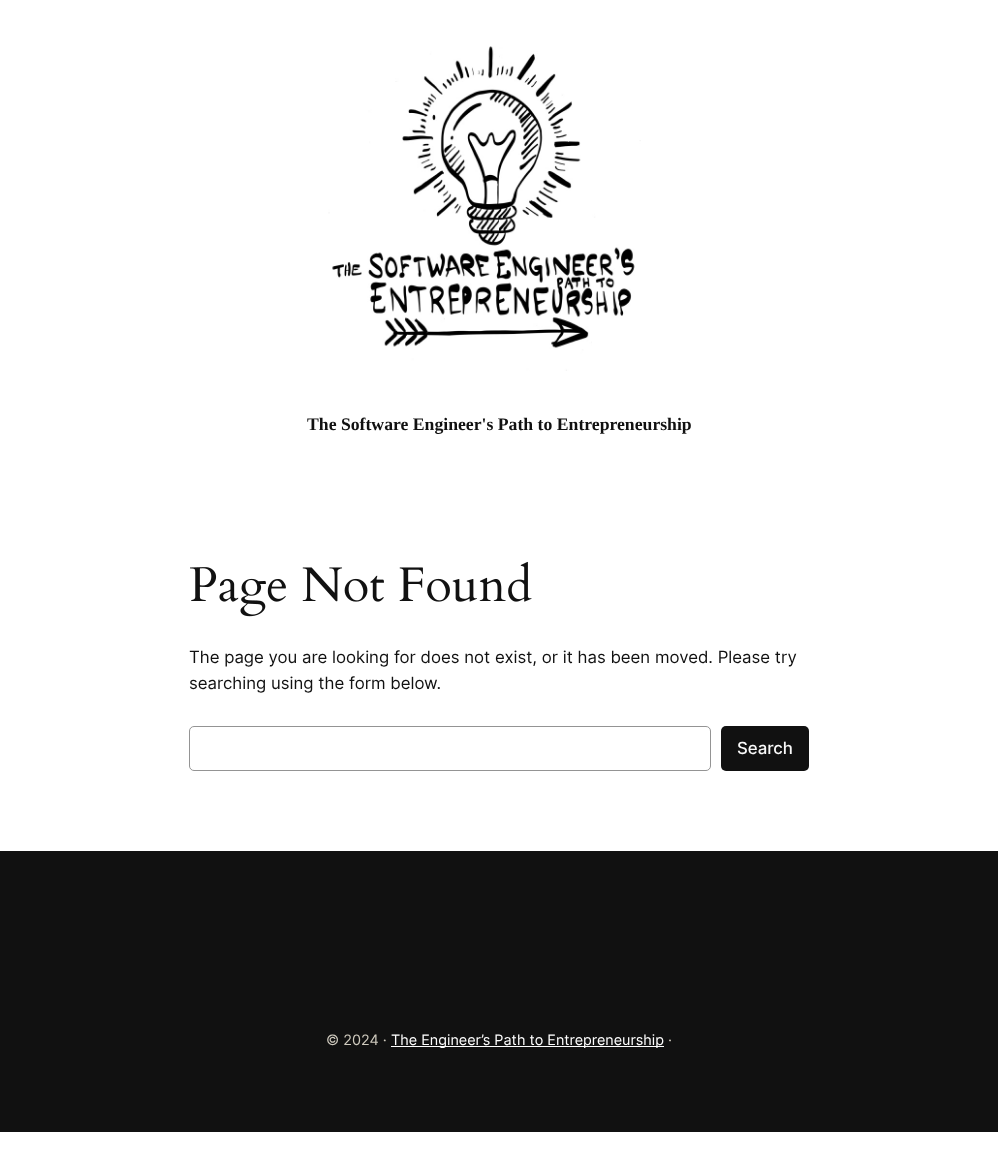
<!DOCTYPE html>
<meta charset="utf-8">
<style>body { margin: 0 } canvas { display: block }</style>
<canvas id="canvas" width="998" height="1157"></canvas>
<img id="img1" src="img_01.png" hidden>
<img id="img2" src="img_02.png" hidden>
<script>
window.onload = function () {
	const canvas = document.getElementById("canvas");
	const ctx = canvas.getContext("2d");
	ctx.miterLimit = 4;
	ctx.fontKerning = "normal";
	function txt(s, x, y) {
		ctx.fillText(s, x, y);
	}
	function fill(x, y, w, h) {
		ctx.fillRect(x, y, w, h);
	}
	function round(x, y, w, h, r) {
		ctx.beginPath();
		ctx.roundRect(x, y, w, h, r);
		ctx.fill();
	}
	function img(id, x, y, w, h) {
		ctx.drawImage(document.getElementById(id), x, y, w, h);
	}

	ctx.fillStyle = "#FFFFFF";
	fill(0, 0, 998, 1157);
	img("img1", 328, 46, 313, 325);
	img("img2", 190, 561, 342, 56);
	ctx.beginPath();
	ctx.roundRect(189.5, 726.5, 521, 44, 4.5);
	ctx.strokeStyle = "#949494";
	ctx.stroke();
	ctx.fillStyle = "#111111";
	round(721, 726, 88, 45, 5);
	fill(0, 851, 998, 281);
	ctx.fillStyle = "#FFFFFF";
	fill(391, 1046, 273, 1);
	ctx.font = "bold 17.7px Liberation Serif";
	ctx.fillStyle = "#111111";
	txt("The Software Engineer's Path to Entrepreneurship", 307, 430);
	ctx.font = "16.8px Inter";
	txt("The page you are looking for does not exist, or it has been moved. Please try", 189, 663);
	txt("searching using the form below.", 189, 689);
	ctx.font = "500 16.8px Inter";
	ctx.fillStyle = "#F9F9F9";
	txt("Search", 737, 754);
	ctx.font = "14.4px Inter";
	ctx.fillStyle = "#CFCABE";
	txt("© 2024 ·", 326, 1045);
	ctx.fillStyle = "#FFFFFF";
	txt("The Engineer’s Path to Entrepreneurship", 391, 1045);
	ctx.fillStyle = "#CFCABE";
	txt("·", 668, 1045);
};
</script>
